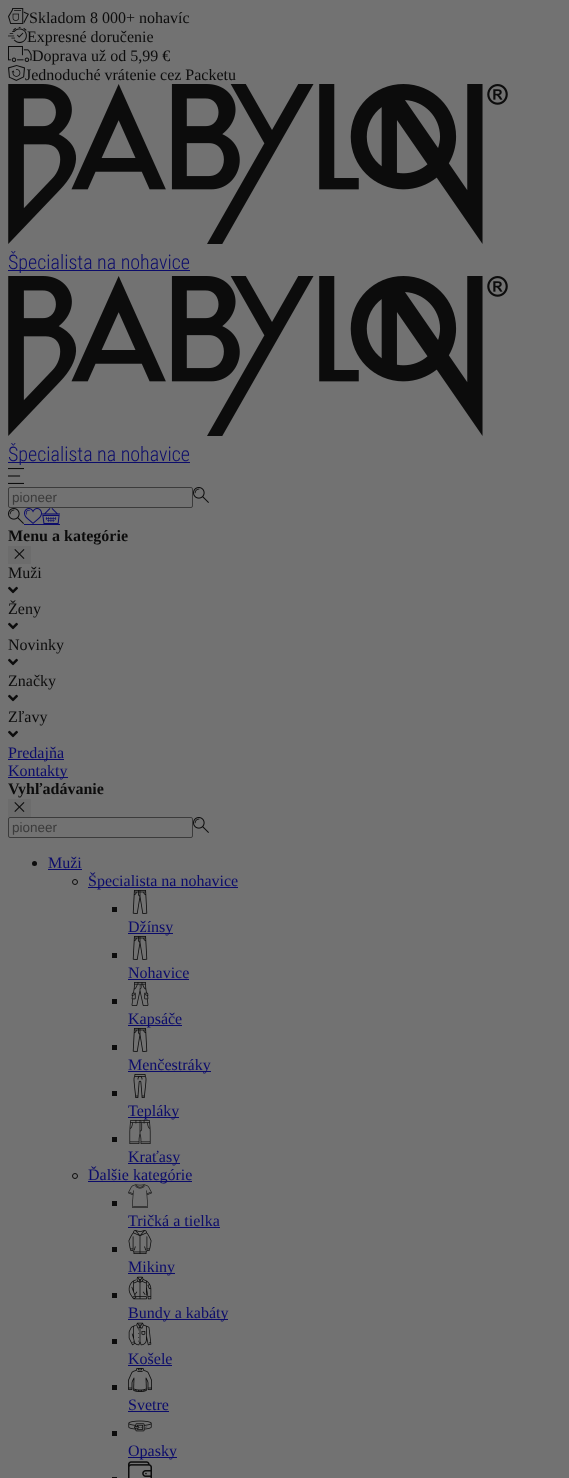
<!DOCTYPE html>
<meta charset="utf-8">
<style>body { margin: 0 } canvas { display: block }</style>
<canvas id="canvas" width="569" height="1478"></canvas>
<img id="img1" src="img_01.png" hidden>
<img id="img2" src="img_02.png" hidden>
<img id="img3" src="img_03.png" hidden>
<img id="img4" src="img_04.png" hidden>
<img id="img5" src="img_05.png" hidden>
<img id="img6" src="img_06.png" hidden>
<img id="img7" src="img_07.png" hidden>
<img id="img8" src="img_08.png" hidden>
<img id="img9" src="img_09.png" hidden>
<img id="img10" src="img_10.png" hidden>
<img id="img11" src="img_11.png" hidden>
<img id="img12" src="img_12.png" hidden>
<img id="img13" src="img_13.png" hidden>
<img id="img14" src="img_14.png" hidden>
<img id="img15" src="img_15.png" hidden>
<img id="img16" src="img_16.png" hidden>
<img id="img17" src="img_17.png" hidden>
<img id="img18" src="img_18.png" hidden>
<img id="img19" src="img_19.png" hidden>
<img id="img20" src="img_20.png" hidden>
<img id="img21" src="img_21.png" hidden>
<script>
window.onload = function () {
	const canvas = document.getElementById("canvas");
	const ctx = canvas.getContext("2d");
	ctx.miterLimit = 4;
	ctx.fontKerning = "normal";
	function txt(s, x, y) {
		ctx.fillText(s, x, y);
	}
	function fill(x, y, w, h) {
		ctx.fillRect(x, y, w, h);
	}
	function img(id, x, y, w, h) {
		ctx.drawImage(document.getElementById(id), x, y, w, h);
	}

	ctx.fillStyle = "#727272";
	fill(0, 0, 569, 1478);
	img("img1", 8, 8, 21, 16);
	img("img2", 8, 26, 19, 18);
	img("img3", 8, 46, 24, 16);
	img("img4", 8, 65, 17, 16);
	img("img5", 8, 84, 500, 160);
	ctx.fillStyle = "#0C0C6B";
	fill(8, 270, 182, 1);
	img("img5", 8, 276, 500, 160);
	fill(8, 462, 182, 1);
	img("img6", 8, 468, 16, 16);
	ctx.beginPath();
	ctx.roundRect(8.5, 487.5, 184, 20, 1.5);
	ctx.strokeStyle = "#3B3B3B";
	ctx.stroke();
	img("img7", 193, 487, 16, 16);
	img("img7", 8, 508, 16, 16);
	img("img8", 24, 508, 18, 16);
	img("img9", 42, 508, 18, 16);
	fill(24, 524, 36, 1);
	ctx.fillStyle = "#6C6C6C";
	fill(8, 546, 23, 18);
	img("img10", 8, 586, 10, 8);
	img("img10", 8, 622, 10, 8);
	img("img10", 8, 658, 10, 8);
	img("img10", 8, 694, 10, 8);
	img("img10", 8, 730, 10, 8);
	ctx.fillStyle = "#0C0C6B";
	fill(8, 759, 56, 1);
	fill(8, 777, 60, 1);
	ctx.fillStyle = "#6C6C6C";
	fill(8, 799, 23, 18);
	ctx.beginPath();
	ctx.roundRect(8.5, 817.5, 184, 20, 1.5);
	ctx.stroke();
	img("img7", 193, 817, 16, 16);
	ctx.fillStyle = "#0C0C0C";
	ctx.beginPath();
	ctx.arc(34.5, 863.5, 2.5, 0, Math.PI * 2);
	ctx.fill();
	ctx.fillStyle = "#0C0C6B";
	fill(48, 869, 34, 1);
	ctx.beginPath();
	ctx.arc(75, 882, 2.5, 0, Math.PI * 2);
	ctx.strokeStyle = "#0C0C0C";
	ctx.stroke();
	fill(88, 887, 150, 1);
	ctx.fillStyle = "#0C0C0C";
	fill(112, 907, 5, 5);
	img("img11", 132, 890, 16, 24);
	ctx.fillStyle = "#0C0C6B";
	fill(128, 933, 45, 1);
	ctx.fillStyle = "#0C0C0C";
	fill(112, 953, 5, 5);
	img("img11", 132, 936, 16, 24);
	ctx.fillStyle = "#0C0C6B";
	fill(128, 979, 61, 1);
	ctx.fillStyle = "#0C0C0C";
	fill(112, 999, 5, 5);
	img("img12", 131, 982, 18, 24);
	ctx.fillStyle = "#0C0C6B";
	fill(128, 1025, 54, 1);
	ctx.fillStyle = "#0C0C0C";
	fill(112, 1045, 5, 5);
	img("img11", 132, 1028, 16, 24);
	ctx.fillStyle = "#0C0C6B";
	fill(128, 1071, 83, 1);
	ctx.fillStyle = "#0C0C0C";
	fill(112, 1091, 5, 5);
	img("img13", 133, 1074, 14, 24);
	ctx.fillStyle = "#0C0C6B";
	fill(128, 1117, 51, 1);
	ctx.fillStyle = "#0C0C0C";
	fill(112, 1137, 5, 5);
	img("img14", 129, 1120, 22, 24);
	ctx.fillStyle = "#0C0C6B";
	fill(128, 1163, 52, 1);
	ctx.beginPath();
	ctx.arc(75, 1176, 2.5, 0, Math.PI * 2);
	ctx.stroke();
	fill(88, 1181, 104, 1);
	ctx.fillStyle = "#0C0C0C";
	fill(112, 1201, 5, 5);
	img("img15", 128, 1184, 24, 24);
	ctx.fillStyle = "#0C0C6B";
	fill(128, 1227, 92, 1);
	ctx.fillStyle = "#0C0C0C";
	fill(112, 1247, 5, 5);
	img("img16", 128, 1230, 24, 24);
	ctx.fillStyle = "#0C0C6B";
	fill(128, 1273, 47, 1);
	ctx.fillStyle = "#0C0C0C";
	fill(112, 1293, 5, 5);
	img("img17", 128, 1276, 24, 24);
	ctx.fillStyle = "#0C0C6B";
	fill(128, 1319, 100, 1);
	ctx.fillStyle = "#0C0C0C";
	fill(112, 1339, 5, 5);
	img("img18", 128, 1322, 24, 24);
	ctx.fillStyle = "#0C0C6B";
	fill(128, 1365, 44, 1);
	ctx.fillStyle = "#0C0C0C";
	fill(112, 1385, 5, 5);
	img("img19", 128, 1368, 24, 24);
	ctx.fillStyle = "#0C0C6B";
	fill(128, 1411, 41, 1);
	ctx.fillStyle = "#0C0C0C";
	fill(112, 1431, 5, 5);
	img("img20", 128, 1420, 24, 12);
	ctx.fillStyle = "#0C0C6B";
	fill(128, 1457, 49, 1);
	ctx.fillStyle = "#0C0C0C";
	fill(112, 1477, 5, 1);
	img("img21", 128, 1461, 24, 17);
	ctx.font = "16px Liberation Serif";
	txt("Skladom 8 000+ nohavíc", 29, 23);
	txt("Expresné doručenie", 27, 42);
	txt("Doprava už od 5,99 €", 32, 61);
	txt("Jednoduché vrátenie cez Packetu", 25, 80);
	ctx.font = "300 20px Roboto Condensed";
	ctx.fillStyle = "#0C0C6B";
	txt("Špecialista na nohavice", 8, 269);
	txt("Špecialista na nohavice", 8, 461);
	ctx.font = "13.5px Liberation Sans";
	ctx.fillStyle = "#3B3B3B";
	txt("pioneer", 12, 502);
	ctx.font = "bold 16px Liberation Serif";
	ctx.fillStyle = "#0C0C0C";
	txt("Menu a kategórie", 8, 541);
	ctx.font = "13.5px FreeSans";
	txt("⨉", 14, 559);
	ctx.font = "16px Liberation Serif";
	txt("Muži", 8, 578);
	txt("Ženy", 8, 614);
	txt("Novinky", 8, 650);
	txt("Značky", 8, 686);
	txt("Zľavy", 8, 722);
	ctx.fillStyle = "#0C0C6B";
	txt("Predajňa", 8, 758);
	txt("Kontakty", 8, 776);
	ctx.font = "bold 16px Liberation Serif";
	ctx.fillStyle = "#0C0C0C";
	txt("Vyhľadávanie", 8, 794);
	ctx.font = "13.5px FreeSans";
	txt("⨉", 14, 812);
	ctx.font = "13.5px Liberation Sans";
	ctx.fillStyle = "#3B3B3B";
	txt("pioneer", 12, 832);
	ctx.font = "16px Liberation Serif";
	ctx.fillStyle = "#0C0C6B";
	txt("Muži", 48, 868);
	txt("Špecialista na nohavice", 88, 886);
	txt("Džínsy", 128, 932);
	txt("Nohavice", 128, 978);
	txt("Kapsáče", 128, 1024);
	txt("Menčestráky", 128, 1070);
	txt("Tepláky", 128, 1116);
	txt("Kraťasy", 128, 1162);
	txt("Ďalšie kategórie", 88, 1180);
	txt("Tričká a tielka", 128, 1226);
	txt("Mikiny", 128, 1272);
	txt("Bundy a kabáty", 128, 1318);
	txt("Košele", 128, 1364);
	txt("Svetre", 128, 1410);
	txt("Opasky", 128, 1456);
};
</script>
